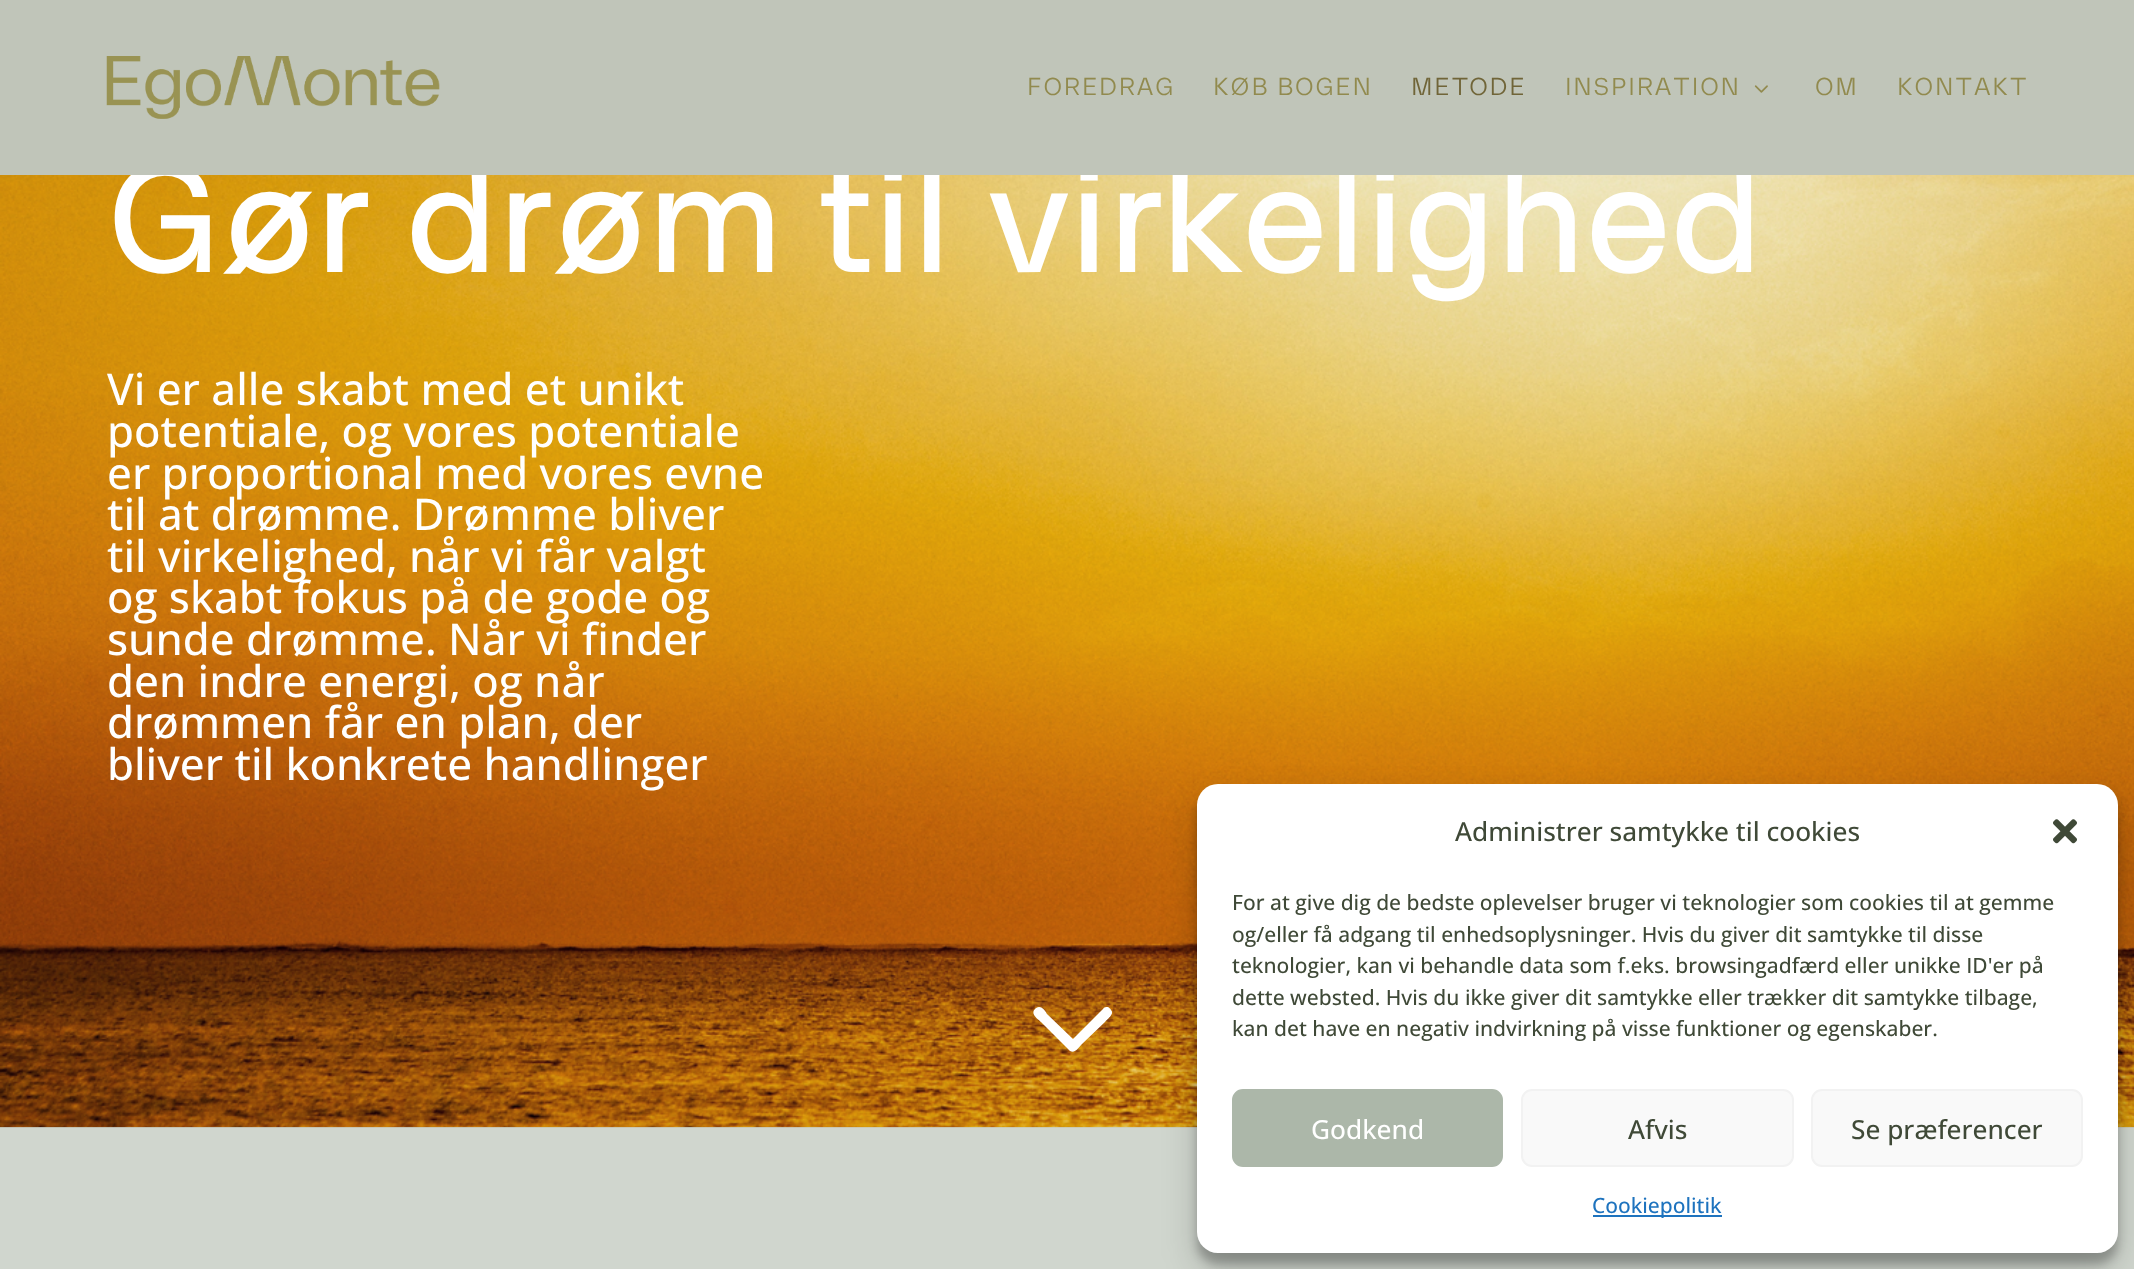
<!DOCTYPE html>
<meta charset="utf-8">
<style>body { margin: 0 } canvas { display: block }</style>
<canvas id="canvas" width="2134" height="1269"></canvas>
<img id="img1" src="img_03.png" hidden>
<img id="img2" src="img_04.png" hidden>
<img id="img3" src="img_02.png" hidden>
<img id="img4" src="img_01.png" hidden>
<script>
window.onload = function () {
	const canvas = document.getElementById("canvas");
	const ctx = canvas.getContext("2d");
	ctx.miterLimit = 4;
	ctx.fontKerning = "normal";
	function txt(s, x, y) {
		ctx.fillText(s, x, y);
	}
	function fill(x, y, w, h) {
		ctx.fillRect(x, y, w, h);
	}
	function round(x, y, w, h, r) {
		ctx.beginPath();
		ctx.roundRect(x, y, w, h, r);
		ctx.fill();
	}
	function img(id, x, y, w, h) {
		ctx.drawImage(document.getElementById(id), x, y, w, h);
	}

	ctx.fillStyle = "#FFFFFF";
	fill(0, 0, 2134, 1269);
	img("img1", 0, 175, 2134, 953);
	ctx.beginPath();
	ctx.moveTo(1103, 1009);
	ctx.lineTo(1073, 1039);
	ctx.lineTo(1047, 1014);
	ctx.bezierCurveTo(1046, 1012, 1043, 1007, 1039, 1007);
	ctx.bezierCurveTo(1037, 1007, 1036, 1008, 1035, 1009);
	ctx.bezierCurveTo(1030, 1014, 1038, 1019, 1041, 1022);
	ctx.lineTo(1070, 1051);
	ctx.bezierCurveTo(1075, 1054, 1079, 1047, 1082, 1044);
	ctx.lineTo(1105, 1022);
	ctx.bezierCurveTo(1107, 1019, 1115, 1014, 1111, 1010);
	ctx.bezierCurveTo(1110, 1008, 1109, 1008, 1108, 1007);
	ctx.bezierCurveTo(1106, 1007, 1104, 1007, 1103, 1009);
	ctx.closePath();
	ctx.fill();
	ctx.fillStyle = "rgba(172, 183, 169, 0.57)";
	fill(0, 1127, 2134, 142);
	ctx.fillStyle = "rgba(0, 0, 0, 0.23)";
	ctx.filter = "blur(5px)";
	ctx.beginPath();
	ctx.roundRect(1197, 795, 921, 469, 21);
	ctx.fill();
	ctx.filter = "none";
	ctx.fillStyle = "rgba(0, 0, 0, 0.19)";
	ctx.filter = "blur(17.5px)";
	ctx.beginPath();
	ctx.roundRect(1197, 802, 921, 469, 21);
	ctx.fill();
	ctx.filter = "none";
	ctx.fillStyle = "#FFFFFF";
	round(1197, 784, 921, 469, 21);
	img("img2", 2053, 819, 24, 25);
	ctx.fillStyle = "#ACB7A9";
	ctx.beginPath();
	ctx.roundRect(1233, 1090, 269, 76, 10);
	ctx.fill();
	ctx.strokeStyle = "#ACB7A9";
	ctx.lineWidth = 2;
	ctx.stroke();
	ctx.fillStyle = "#F9F9F9";
	ctx.beginPath();
	ctx.roundRect(1522, 1090, 271, 76, 10);
	ctx.fill();
	ctx.strokeStyle = "#F2F2F2";
	ctx.stroke();
	ctx.beginPath();
	ctx.roundRect(1812, 1090, 270, 76, 10);
	ctx.fill();
	ctx.stroke();
	ctx.fillStyle = "#1E73BE";
	fill(1593, 1215, 129, 2);
	ctx.font = "bold 148.75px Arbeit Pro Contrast";
	ctx.fillStyle = "#FFFFFF";
	txt("Gør drøm til virkelighed", 107, 272);
	ctx.fillStyle = "#C0C5B9";
	fill(0, 0, 2134, 175);
	ctx.letterSpacing = "1.75px";
	ctx.font = "24.5px Arbeit Pro Contrast";
	ctx.fillStyle = "#918A4E";
	txt("KONTAKT", 1897, 95);
	txt("OM", 1815, 95);
	img("img3", 1754, 85, 14, 8);
	txt("INSPIRATION", 1565, 95);
	ctx.fillStyle = "#706538";
	txt("METODE", 1411, 95);
	ctx.fillStyle = "#918A4E";
	txt("KØB BOGEN", 1213, 95);
	txt("FOREDRAG", 1027, 95);
	img("img4", 106, 56, 334, 63);
	ctx.letterSpacing = "0px";
	ctx.font = "500 43.75px Open Sans";
	ctx.fillStyle = "#FFFFFF";
	txt("Vi er alle skabt med et unikt", 107, 405);
	txt("potentiale, og vores potentiale", 107, 447);
	txt("er proportional med vores evne", 107, 489);
	txt("til at drømme. Drømme bliver", 107, 530);
	txt("til virkelighed, når vi får valgt", 107, 572);
	txt("og skabt fokus på de gode og", 107, 613);
	txt("sunde drømme. Når vi finder", 107, 655);
	txt("den indre energi, og når", 107, 697);
	txt("drømmen får en plan, der", 107, 738);
	txt("bliver til konkrete handlinger", 107, 780);
	ctx.font = "500 26.25px Open Sans";
	ctx.fillStyle = "#3F4937";
	txt("Administrer samtykke til cookies", 1455, 841);
	ctx.font = "500 21px Open Sans";
	txt("For at give dig de bedste oplevelser bruger vi teknologier som cookies til at gemme", 1232, 910);
	txt("og/eller få adgang til enhedsoplysninger. Hvis du giver dit samtykke til disse", 1232, 942);
	txt("teknologier, kan vi behandle data som f.eks. browsingadfærd eller unikke ID'er på", 1232, 973);
	txt("dette websted. Hvis du ikke giver dit samtykke eller trækker dit samtykke tilbage,", 1232, 1005);
	txt("kan det have en negativ indvirkning på visse funktioner og egenskaber.", 1232, 1036);
	ctx.font = "500 26.25px Open Sans";
	ctx.fillStyle = "#FFFFFF";
	txt("Godkend", 1311, 1139);
	ctx.fillStyle = "#3F4937";
	txt("Afvis", 1628, 1139);
	txt("Se præferencer", 1851, 1139);
	ctx.font = "500 21px Open Sans";
	ctx.fillStyle = "#1E73BE";
	txt("Cookiepolitik", 1592, 1213);
};
</script>
